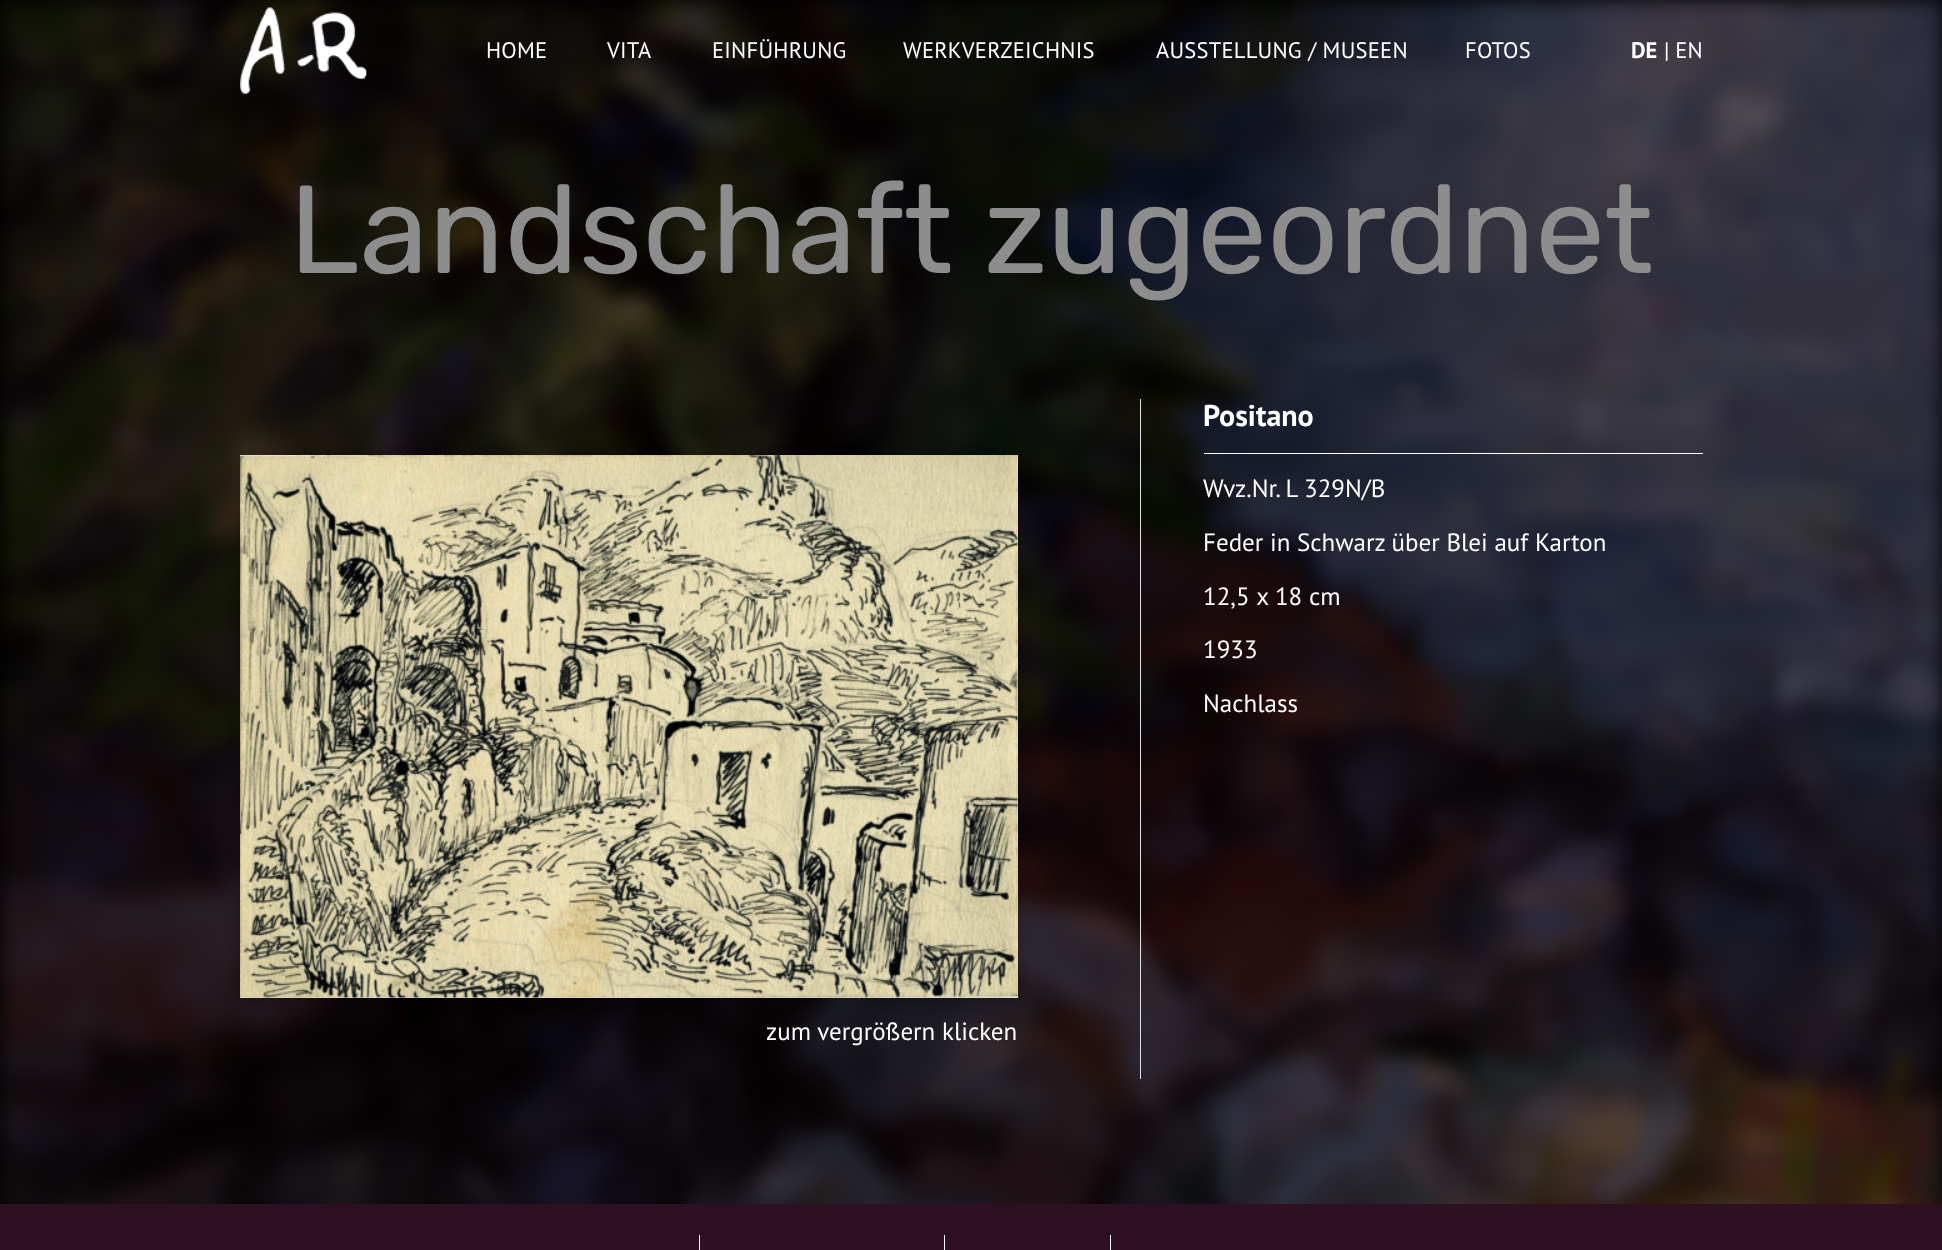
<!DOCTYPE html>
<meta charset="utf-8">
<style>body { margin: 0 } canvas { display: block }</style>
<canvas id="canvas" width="1942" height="1250"></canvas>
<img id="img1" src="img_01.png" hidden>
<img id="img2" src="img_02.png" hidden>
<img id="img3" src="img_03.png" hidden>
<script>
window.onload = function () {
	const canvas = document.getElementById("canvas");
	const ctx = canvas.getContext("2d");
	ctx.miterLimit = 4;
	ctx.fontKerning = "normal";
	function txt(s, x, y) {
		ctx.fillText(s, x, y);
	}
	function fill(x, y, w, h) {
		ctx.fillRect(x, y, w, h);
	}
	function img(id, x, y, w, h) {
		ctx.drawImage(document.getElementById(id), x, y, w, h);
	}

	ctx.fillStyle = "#000000";
	fill(0, 0, 1942, 1250);
	img("img1", 0, 0, 1942, 1204);
	img("img2", 240, 7, 127, 87);
	ctx.fillStyle = "#FFFFFF";
	fill(1204, 453, 499, 1);
	ctx.fillStyle = "#DEE2E6";
	fill(1140, 399, 1, 680);
	ctx.fillStyle = "#FFFFFF";
	fill(240, 455, 778, 543);
	ctx.fillStyle = "rgba(0, 0, 0, 0.2)";
	ctx.filter = "blur(6px)";
	ctx.beginPath();
	ctx.rect(239, 456, 780, 545);
	ctx.fill();
	ctx.filter = "none";
	img("img3", 240, 455, 778, 543);
	ctx.fillStyle = "#2F1023";
	fill(0, 1204, 1942, 46);
	ctx.fillStyle = "#FFFFFF";
	fill(699, 1235, 1, 15);
	fill(944, 1235, 1, 15);
	fill(1110, 1235, 1, 15);
	ctx.letterSpacing = "0.25px";
	ctx.font = "22.5px PT Sans";
	txt("HOME", 486, 58);
	txt("VITA", 607, 58);
	txt("EINFÜHRUNG", 712, 58);
	txt("WERKVERZEICHNIS", 903, 58);
	txt("AUSSTELLUNG / MUSEEN", 1156, 58);
	txt("FOTOS", 1465, 58);
	ctx.letterSpacing = "0px";
	ctx.font = "bold 22.5px PT Sans";
	txt("DE", 1631, 58);
	ctx.font = "22.5px PT Sans";
	txt("| EN", 1664, 58);
	ctx.font = "125px Rubik";
	ctx.fillStyle = "#8D8D8E";
	txt("Landschaft zugeordnet", 289, 273);
	ctx.font = "bold 30px PT Sans";
	ctx.fillStyle = "#FFFFFF";
	txt("Positano", 1203, 426);
	ctx.font = "25px PT Sans";
	txt("Wvz.Nr. L 329N/B", 1203, 497);
	txt("Feder in Schwarz über Blei auf Karton", 1203, 551);
	txt("12,5 x 18 cm", 1203, 605);
	txt("1933", 1203, 658);
	txt("Nachlass", 1203, 712);
	txt("zum vergrößern klicken", 766, 1040);
};
</script>
